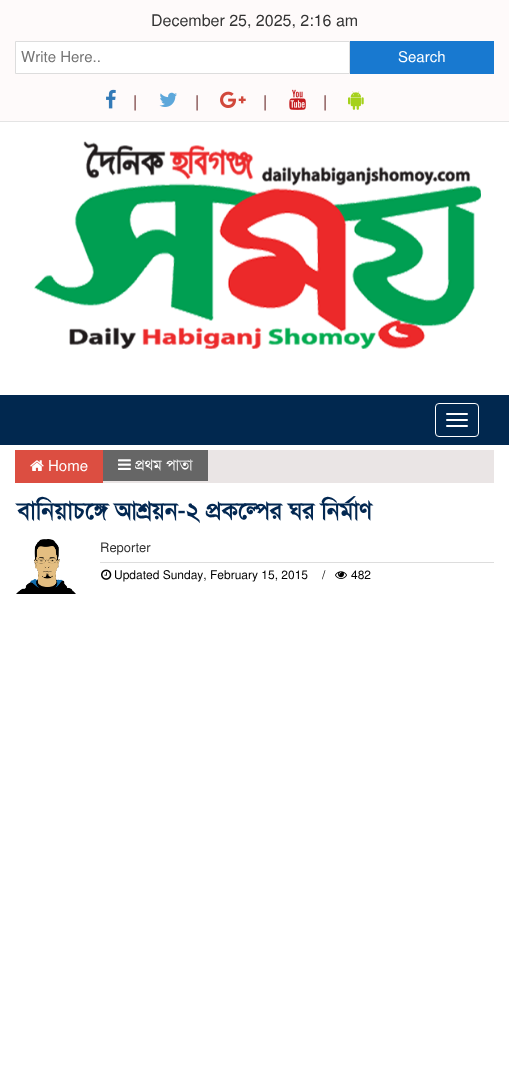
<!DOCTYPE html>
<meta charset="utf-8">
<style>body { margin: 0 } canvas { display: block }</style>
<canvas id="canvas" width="509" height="1092"></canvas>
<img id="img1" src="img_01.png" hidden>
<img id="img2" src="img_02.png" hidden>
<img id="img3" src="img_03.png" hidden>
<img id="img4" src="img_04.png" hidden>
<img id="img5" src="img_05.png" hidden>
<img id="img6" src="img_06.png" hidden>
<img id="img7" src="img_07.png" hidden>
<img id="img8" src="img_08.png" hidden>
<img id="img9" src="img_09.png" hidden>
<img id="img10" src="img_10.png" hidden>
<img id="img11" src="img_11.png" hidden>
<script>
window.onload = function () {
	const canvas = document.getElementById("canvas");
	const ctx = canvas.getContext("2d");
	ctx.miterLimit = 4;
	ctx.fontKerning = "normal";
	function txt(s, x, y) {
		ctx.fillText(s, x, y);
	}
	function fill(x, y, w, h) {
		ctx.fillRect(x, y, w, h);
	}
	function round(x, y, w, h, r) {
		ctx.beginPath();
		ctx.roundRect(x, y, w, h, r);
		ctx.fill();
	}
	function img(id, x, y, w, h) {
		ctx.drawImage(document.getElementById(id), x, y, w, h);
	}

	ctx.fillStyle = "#FFFFFF";
	fill(0, 0, 509, 1092);
	ctx.fillStyle = "#FEFAFA";
	fill(0, 0, 509, 121);
	ctx.fillStyle = "#E4E4E4";
	fill(0, 121, 509, 1);
	ctx.fillStyle = "#FFFFFF";
	ctx.beginPath();
	ctx.rect(15.5, 41.5, 334, 32);
	ctx.fill();
	ctx.strokeStyle = "#DDDDDD";
	ctx.stroke();
	ctx.fillStyle = "#1879D0";
	fill(350, 41, 144, 33);
	img("img1", 106, 89, 10, 20);
	img("img2", 159, 92, 18, 15);
	img("img3", 220, 91, 26, 17);
	img("img4", 289, 89, 17, 21);
	img("img5", 348, 91, 16, 19);
	img("img6", 34, 141, 447, 208);
	ctx.fillStyle = "#01284F";
	fill(0, 395, 509, 50);
	ctx.beginPath();
	ctx.roundRect(435.5, 403.5, 43, 33, 3.5);
	ctx.strokeStyle = "#FFFFFF";
	ctx.stroke();
	ctx.fillStyle = "#FFFFFF";
	round(446, 413, 22, 2, 1);
	round(446, 419, 22, 2, 1);
	round(446, 425, 22, 2, 1);
	ctx.fillStyle = "#EAE5E5";
	fill(103, 450, 391, 33);
	ctx.fillStyle = "#DC4E41";
	fill(15, 450, 88, 33);
	img("img7", 30, 460, 14, 11);
	ctx.fillStyle = "#666666";
	fill(103, 450, 105, 31);
	img("img8", 118, 459, 13, 11);
	img("img9", 16, 539, 60, 55);
	ctx.fillStyle = "#DDDDDD";
	fill(100, 562, 394, 1);
	img("img10", 101, 569, 11, 11);
	img("img11", 335, 571, 12, 8);
	ctx.font = "16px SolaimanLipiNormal";
	ctx.fillStyle = "#333333";
	txt("December 25, 2025, 2:16 am", 151, 26);
	ctx.font = "15px SolaimanLipiNormal";
	ctx.fillStyle = "#757575";
	txt("Write Here..", 21, 62);
	ctx.fillStyle = "#FFFFFF";
	txt("Search", 398, 62);
	ctx.font = "16px SolaimanLipiNormal";
	ctx.fillStyle = "#4D0202";
	txt("|", 133, 107);
	txt("|", 195, 107);
	txt("|", 263, 107);
	txt("|", 323, 107);
	ctx.font = "15px SolaimanLipiNormal";
	ctx.fillStyle = "#FFFFFF";
	txt("Home", 48, 471);
	txt("প্রথম পাতা", 135, 470);
	ctx.font = "bold 24px SolaimanLipiNormal";
	ctx.fillStyle = "#022751";
	txt("বানিয়াচঙ্গে আশ্রয়ন-২ প্রকল্পের ঘর নির্মাণ", 17, 519);
	ctx.font = "13px SolaimanLipiNormal";
	ctx.fillStyle = "#333333";
	txt("Reporter", 100, 552);
	ctx.font = "12px SolaimanLipiNormal";
	ctx.fillStyle = "#000000";
	txt("Updated Sunday, February 15, 2015", 114, 579);
	txt("/", 322, 579);
	txt("482", 351, 579);
};
</script>
